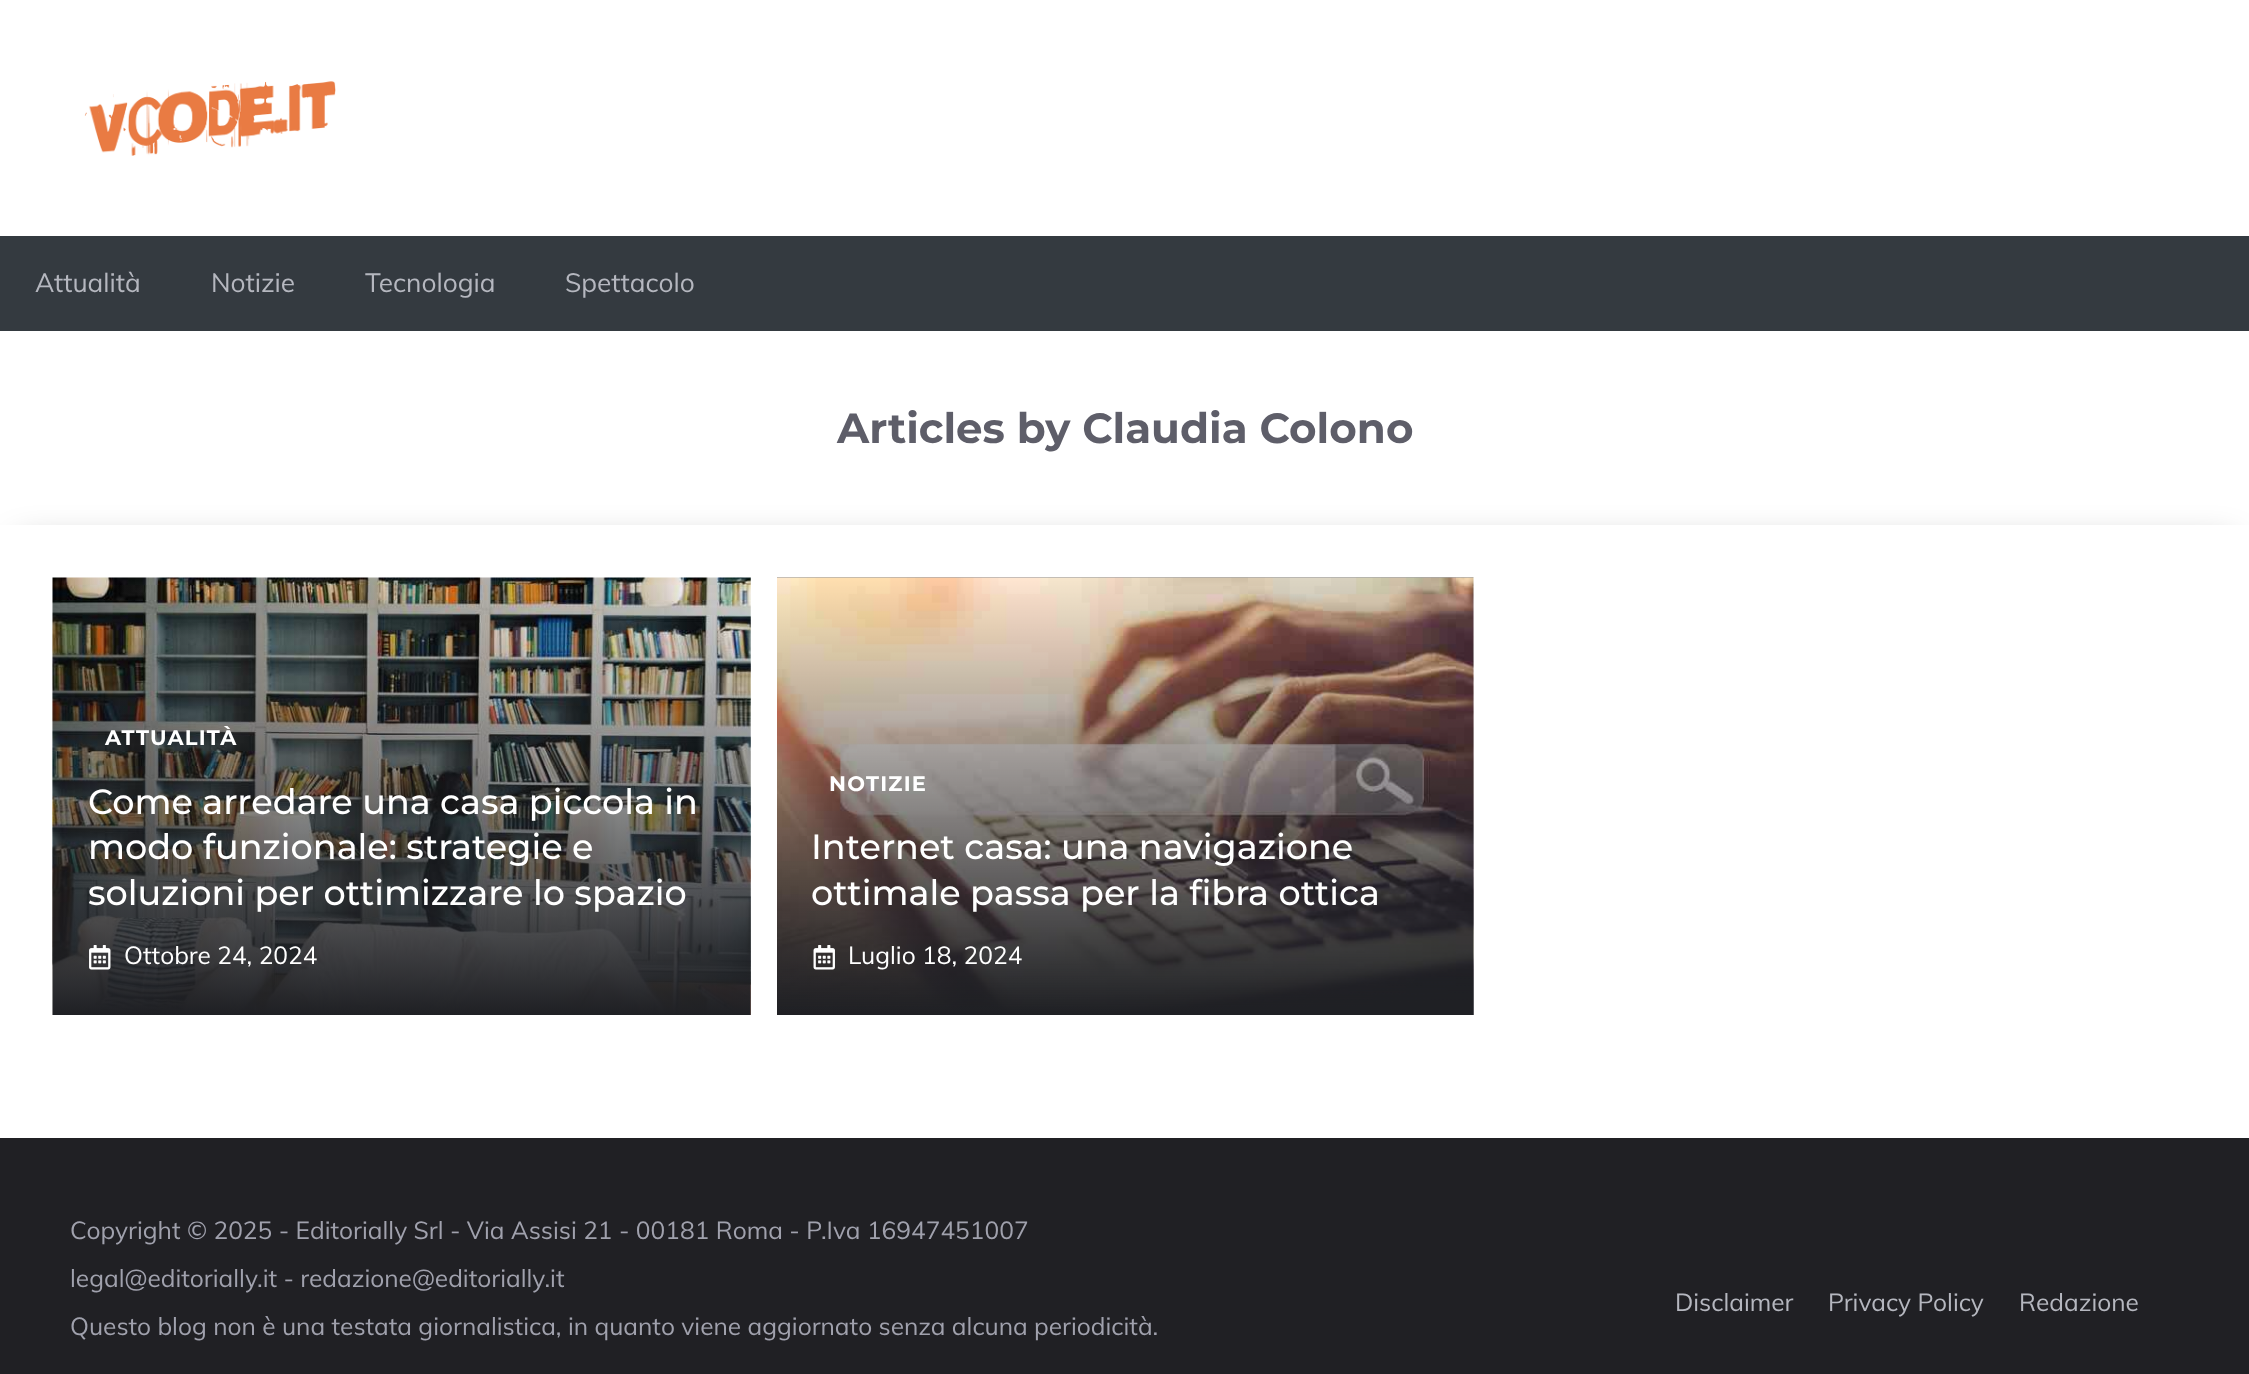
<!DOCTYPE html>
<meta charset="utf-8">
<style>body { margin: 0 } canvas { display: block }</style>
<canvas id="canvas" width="2249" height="1374"></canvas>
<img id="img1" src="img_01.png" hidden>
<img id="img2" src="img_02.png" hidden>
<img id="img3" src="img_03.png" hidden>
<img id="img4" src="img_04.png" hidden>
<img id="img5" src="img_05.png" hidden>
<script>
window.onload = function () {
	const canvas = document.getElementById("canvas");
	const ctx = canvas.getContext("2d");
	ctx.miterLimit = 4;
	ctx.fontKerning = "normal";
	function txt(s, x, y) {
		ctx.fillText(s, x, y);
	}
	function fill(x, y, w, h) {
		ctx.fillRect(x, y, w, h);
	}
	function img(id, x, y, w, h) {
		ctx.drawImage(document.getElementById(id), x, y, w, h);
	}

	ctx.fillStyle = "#FFFFFF";
	fill(0, 0, 2249, 1374);
	img("img1", 84, 81, 252, 75);
	ctx.fillStyle = "#343A40";
	fill(0, 236, 2249, 95);
	ctx.fillStyle = "rgba(0, 0, 0, 0.3)";
	ctx.filter = "blur(17.5px)";
	ctx.beginPath();
	ctx.rect(18, 543, 2215, 577);
	ctx.fill();
	ctx.filter = "none";
	ctx.fillStyle = "#FFFFFF";
	fill(0, 525, 2249, 613);
	img("img2", 52, 577, 699, 438);
	img("img3", 89, 945, 22, 25);
	img("img4", 777, 577, 697, 438);
	img("img5", 813, 945, 22, 25);
	ctx.fillStyle = "#202024";
	fill(0, 1138, 2249, 236);
	ctx.font = "26.25px Muli";
	ctx.fillStyle = "#B5B7BF";
	txt("Attualità", 35, 292);
	txt("Notizie", 211, 292);
	txt("Tecnologia", 365, 292);
	txt("Spettacolo", 565, 292);
	ctx.font = "100 42px Montserrat";
	ctx.fillStyle = "#5E5E69";
	txt("Articles by Claudia Colono", 837, 443);
	ctx.letterSpacing = "1.25px";
	ctx.font = "100 21px Montserrat";
	ctx.fillStyle = "#FFFFFF";
	txt("ATTUALITÀ", 105, 745);
	ctx.letterSpacing = "0px";
	ctx.font = "100 35px 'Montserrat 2'";
	txt("Come arredare una casa piccola in", 88, 814);
	txt("modo funzionale: strategie e", 88, 859);
	txt("soluzioni per ottimizzare lo spazio", 88, 905);
	ctx.font = "24.5px Muli";
	txt("Ottobre 24, 2024", 124, 964);
	ctx.letterSpacing = "1.25px";
	ctx.font = "100 21px Montserrat";
	txt("NOTIZIE", 829, 791);
	ctx.letterSpacing = "0px";
	ctx.font = "100 35px 'Montserrat 2'";
	txt("Internet casa: una navigazione", 811, 859);
	txt("ottimale passa per la fibra ottica", 811, 905);
	ctx.font = "24.5px Muli";
	txt("Luglio 18, 2024", 848, 964);
	ctx.fillStyle = "#A0A1AD";
	txt("Copyright © 2025 - Editorially Srl - Via Assisi 21 - 00181 Roma - P.Iva 16947451007", 70, 1239);
	txt("legal@editorially.it - redazione@editorially.it", 70, 1287);
	txt("Questo blog non è una testata giornalistica, in quanto viene aggiornato senza alcuna periodicità.", 70, 1335);
	ctx.fillStyle = "#B5B7BF";
	txt("Disclaimer", 1675, 1311);
	txt("Privacy Policy", 1828, 1311);
	txt("Redazione", 2019, 1311);
};
</script>
